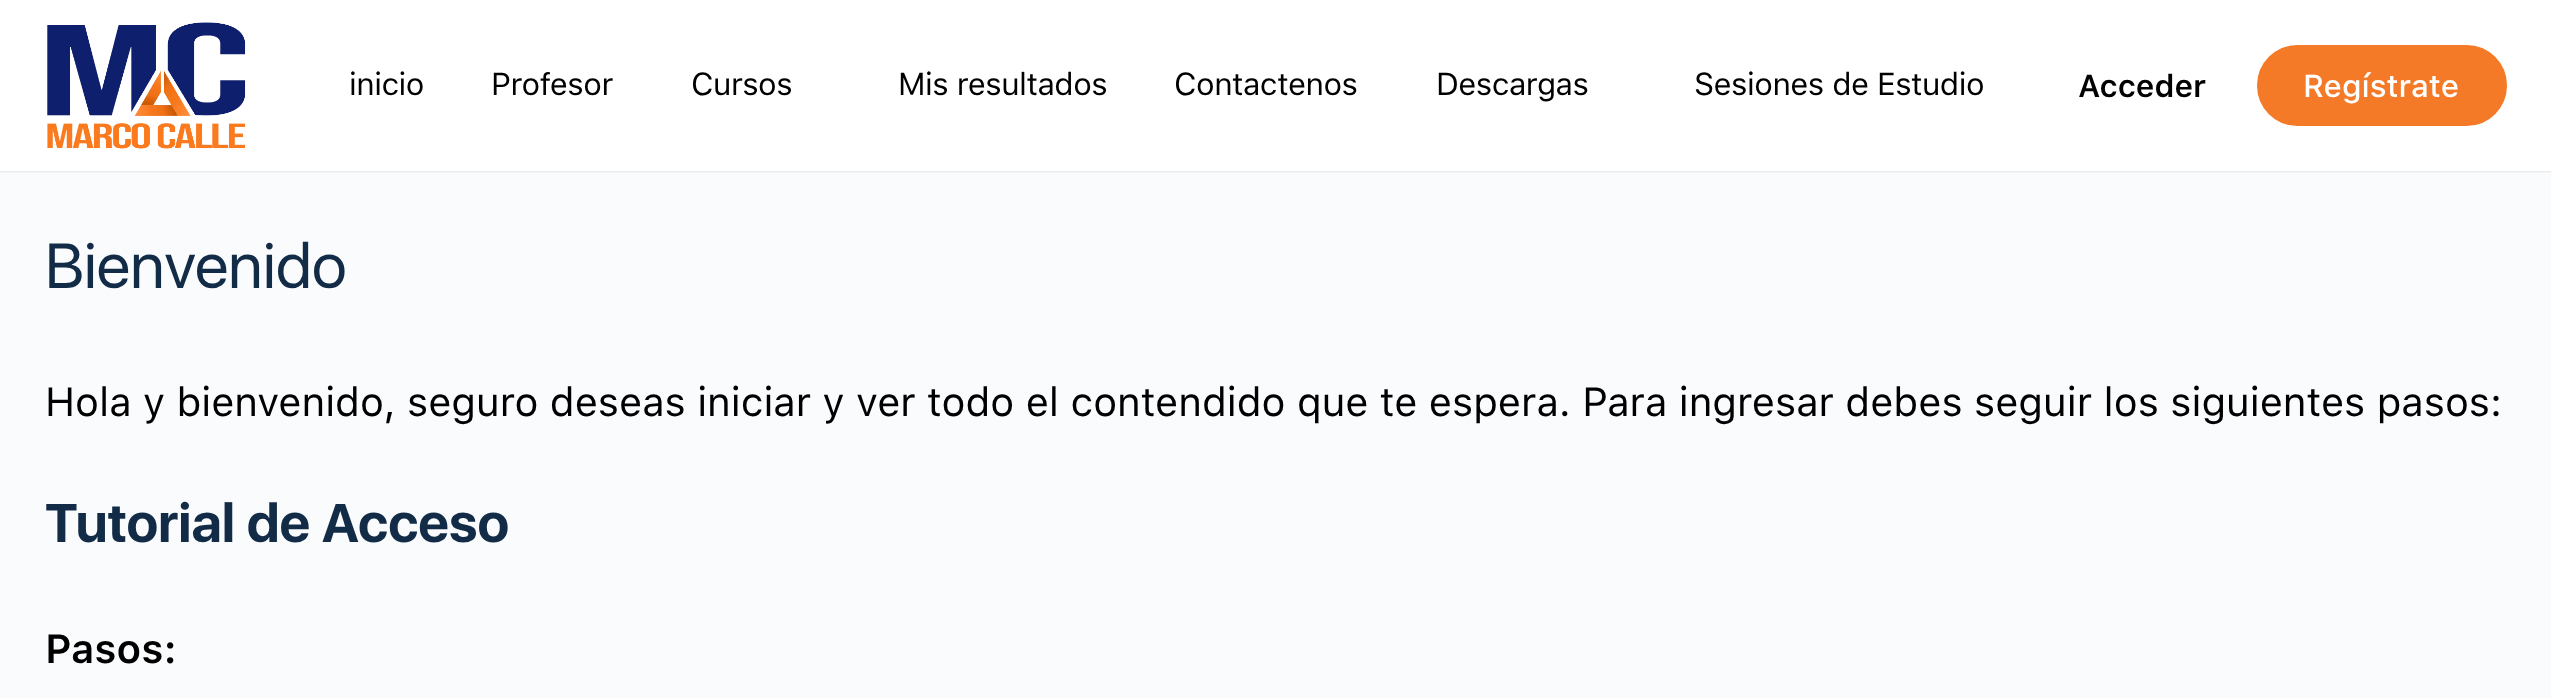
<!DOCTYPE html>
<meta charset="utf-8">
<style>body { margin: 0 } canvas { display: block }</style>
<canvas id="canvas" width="2551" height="698"></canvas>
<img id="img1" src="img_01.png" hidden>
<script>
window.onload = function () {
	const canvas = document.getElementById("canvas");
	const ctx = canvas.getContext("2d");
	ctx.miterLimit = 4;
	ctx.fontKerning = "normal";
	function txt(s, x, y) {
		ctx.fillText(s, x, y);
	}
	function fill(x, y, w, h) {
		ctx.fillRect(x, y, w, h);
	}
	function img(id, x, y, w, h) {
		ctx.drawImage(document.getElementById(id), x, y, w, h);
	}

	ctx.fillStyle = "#FAFBFD";
	fill(0, 0, 2551, 698);
	ctx.fillStyle = "rgba(65, 71, 108, 0.15)";
	ctx.filter = "blur(1px)";
	ctx.beginPath();
	ctx.rect(0, 0, 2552, 171);
	ctx.fill();
	ctx.filter = "none";
	ctx.fillStyle = "rgba(139, 141, 157, 0.05)";
	ctx.beginPath();
	ctx.moveTo(0, 171);
	ctx.lineTo(0, 173);
	ctx.lineTo(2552, 173);
	ctx.lineTo(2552, 2);
	ctx.lineTo(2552, 171);
	ctx.closePath();
	ctx.fill();
	ctx.fillStyle = "#FFFFFF";
	fill(0, 0, 2551, 171);
	img("img1", 47, 22, 199, 127);
	ctx.fillStyle = "#F47A28";
	ctx.beginPath();
	ctx.roundRect(2258, 46, 248, 79, 39.5);
	ctx.fill();
	ctx.strokeStyle = "#F47A28";
	ctx.lineWidth = 2;
	ctx.stroke();
	ctx.letterSpacing = "-0.5px";
	ctx.font = "31.5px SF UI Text";
	ctx.fillStyle = "#000000";
	txt("inicio", 349, 95);
	txt("Profesor", 491, 95);
	txt("Cursos", 691, 95);
	txt("Mis resultados", 898, 95);
	txt("Contactenos", 1174, 95);
	txt("Descargas", 1436, 95);
	txt("Sesiones de Estudio", 1694, 95);
	ctx.letterSpacing = "0px";
	ctx.font = "600 31.5px SF UI Text";
	txt("Acceder", 2078, 97);
	ctx.font = "500 31.5px SF UI Text";
	ctx.fillStyle = "#FFFFFF";
	txt("Regístrate", 2303, 97);
	ctx.font = "63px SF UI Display";
	ctx.fillStyle = "#122B46";
	txt("Bienvenido", 45, 288);
	ctx.font = "40.5px SF UI Text";
	ctx.fillStyle = "#000000";
	txt("Hola y bienvenido, seguro deseas iniciar y ver todo el contendido que te espera. Para ingresar debes seguir los siguientes pasos:", 45, 416);
	ctx.font = "bold 54px SF UI Display";
	ctx.fillStyle = "#122B46";
	txt("Tutorial de Acceso", 45, 542);
	ctx.font = "600 40.5px SF UI Text";
	ctx.fillStyle = "#000000";
	txt("Pasos:", 45, 663);
};
</script>
